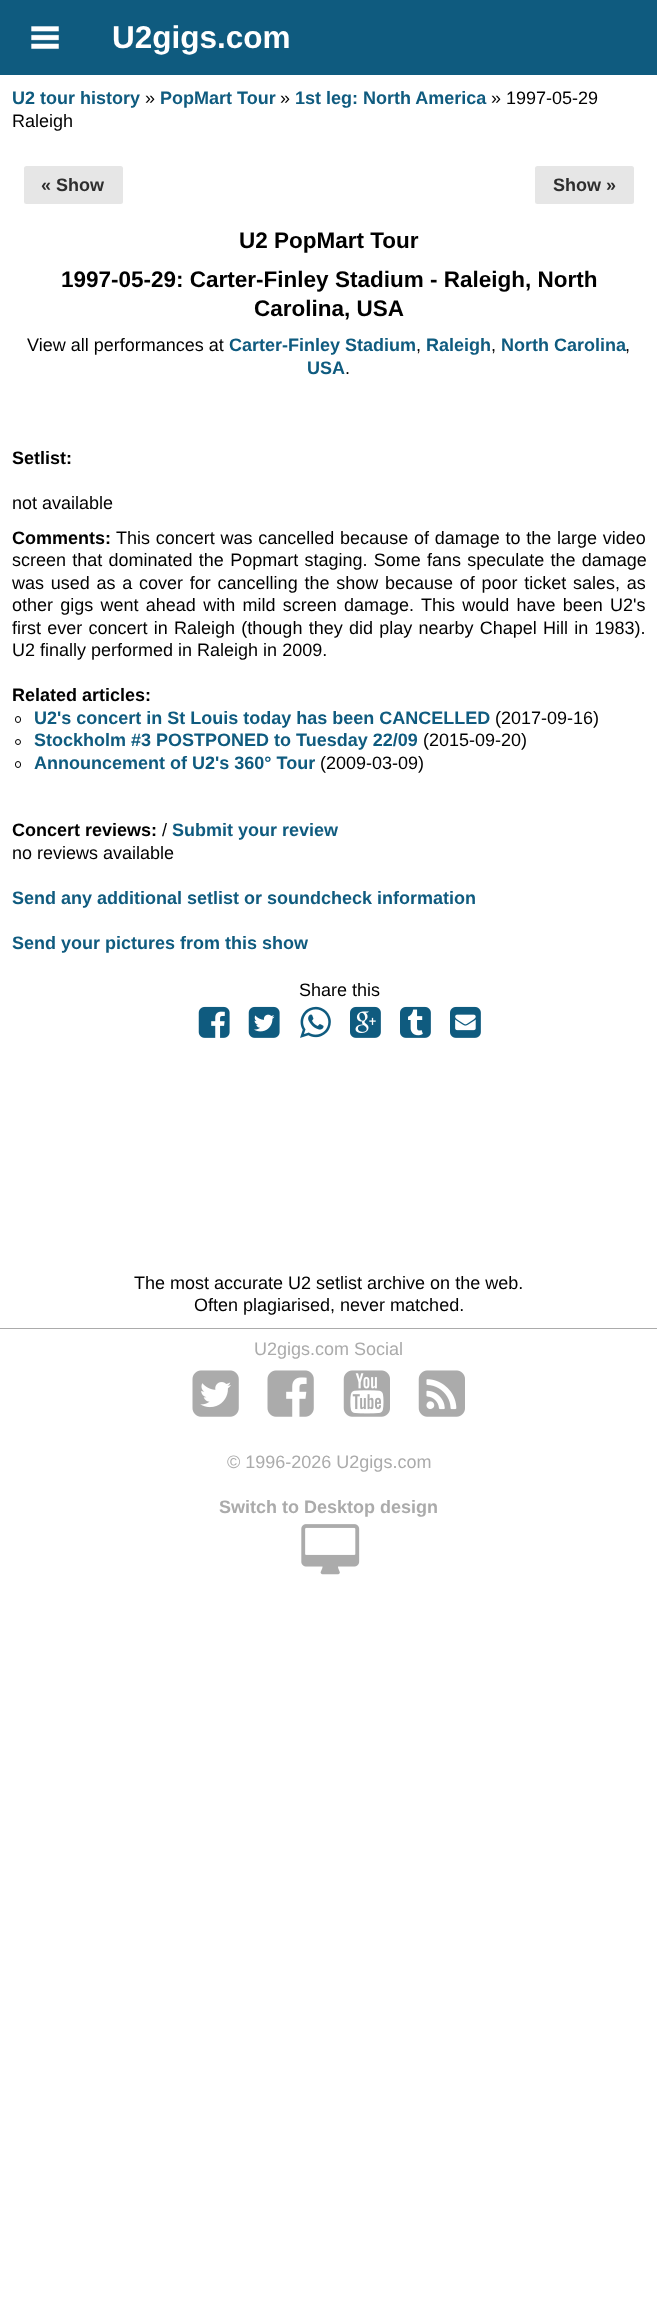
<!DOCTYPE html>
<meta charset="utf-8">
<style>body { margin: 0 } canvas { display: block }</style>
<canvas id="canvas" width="657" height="2306"></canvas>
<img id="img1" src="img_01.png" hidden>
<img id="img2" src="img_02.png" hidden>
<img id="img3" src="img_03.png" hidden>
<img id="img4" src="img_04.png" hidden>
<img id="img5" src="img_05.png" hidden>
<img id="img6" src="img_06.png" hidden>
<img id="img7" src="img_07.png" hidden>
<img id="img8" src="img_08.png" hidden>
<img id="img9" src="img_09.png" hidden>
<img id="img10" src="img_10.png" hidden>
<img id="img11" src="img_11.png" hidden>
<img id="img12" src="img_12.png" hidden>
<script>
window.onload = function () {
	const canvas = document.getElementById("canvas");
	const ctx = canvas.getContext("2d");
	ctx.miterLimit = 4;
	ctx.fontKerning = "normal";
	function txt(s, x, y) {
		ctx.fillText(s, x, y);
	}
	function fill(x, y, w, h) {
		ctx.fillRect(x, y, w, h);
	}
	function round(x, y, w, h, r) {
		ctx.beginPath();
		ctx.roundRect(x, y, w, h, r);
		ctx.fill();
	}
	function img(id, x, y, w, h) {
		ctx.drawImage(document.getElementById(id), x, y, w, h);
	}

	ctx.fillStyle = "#FFFFFF";
	fill(0, 0, 657, 2306);
	ctx.fillStyle = "#0F5B7F";
	fill(0, 0, 657, 75);
	img("img1", 31, 26, 28, 23);
	ctx.fillStyle = "#E6E6E6";
	round(24, 166, 99, 38, 2.5);
	round(535, 166, 99, 38, 2.5);
	ctx.beginPath();
	ctx.roundRect(15.5, 716.5, 5, 6, 2.5);
	ctx.strokeStyle = "#000000";
	ctx.stroke();
	ctx.beginPath();
	ctx.arc(18, 742, 2.5, 0, Math.PI * 2);
	ctx.stroke();
	ctx.beginPath();
	ctx.roundRect(15.5, 761.5, 5, 6, 2.5);
	ctx.stroke();
	img("img2", 198, 1006, 32, 32);
	img("img3", 248, 1006, 32, 32);
	img("img4", 300, 1006, 31, 32);
	img("img5", 350, 1006, 31, 32);
	img("img6", 400, 1006, 31, 32);
	img("img7", 450, 1006, 31, 32);
	ctx.fillStyle = "#ABABAB";
	fill(0, 1328, 657, 1);
	img("img8", 192, 1370, 47, 47);
	img("img9", 267, 1370, 47, 47);
	img("img10", 343, 1370, 47, 47);
	img("img11", 418, 1370, 47, 47);
	img("img12", 301, 1524, 59, 51);
	ctx.font = "bold 31.5px Liberation Sans";
	ctx.fillStyle = "#FFFFFF";
	txt("U2gigs.com", 112, 48);
	ctx.font = "bold 18px Liberation Sans";
	ctx.fillStyle = "#0F5B7F";
	txt("U2 tour history", 12, 104);
	ctx.font = "18px Liberation Sans";
	ctx.fillStyle = "#000000";
	txt("»", 145, 104);
	ctx.font = "bold 18px Liberation Sans";
	ctx.fillStyle = "#0F5B7F";
	txt("PopMart Tour", 160, 104);
	ctx.font = "18px Liberation Sans";
	ctx.fillStyle = "#000000";
	txt("»", 280, 104);
	ctx.font = "bold 18px Liberation Sans";
	ctx.fillStyle = "#0F5B7F";
	txt("1st leg: North America", 295, 104);
	ctx.font = "18px Liberation Sans";
	ctx.fillStyle = "#000000";
	txt("» 1997-05-29", 491, 104);
	txt("Raleigh", 12, 127);
	ctx.font = "bold 18px Liberation Sans";
	ctx.fillStyle = "#2E2E2E";
	txt("« Show", 41, 191);
	txt("Show »", 553, 191);
	ctx.font = "bold 22.5px Liberation Sans";
	ctx.fillStyle = "#000000";
	txt("U2 PopMart Tour", 239, 248);
	txt("1997-05-29: Carter-Finley Stadium - Raleigh, North", 61, 287);
	txt("Carolina, USA", 254, 316);
	ctx.font = "18px Liberation Sans";
	txt("View all performances at", 27, 351);
	ctx.font = "bold 18px Liberation Sans";
	ctx.fillStyle = "#0F5B7F";
	txt("Carter-Finley Stadium", 229, 351);
	ctx.font = "18px Liberation Sans";
	ctx.fillStyle = "#000000";
	txt(",", 416, 351);
	ctx.font = "bold 18px Liberation Sans";
	ctx.fillStyle = "#0F5B7F";
	txt("Raleigh", 426, 351);
	ctx.font = "18px Liberation Sans";
	ctx.fillStyle = "#000000";
	txt(",", 491, 351);
	ctx.font = "bold 18px Liberation Sans";
	ctx.fillStyle = "#0F5B7F";
	txt("North Carolina", 501, 351);
	ctx.font = "18px Liberation Sans";
	ctx.fillStyle = "#000000";
	txt(",", 625, 351);
	ctx.font = "bold 18px Liberation Sans";
	ctx.fillStyle = "#0F5B7F";
	txt("USA", 307, 374);
	ctx.font = "18px Liberation Sans";
	ctx.fillStyle = "#000000";
	txt(".", 345, 374);
	ctx.font = "bold 18px Liberation Sans";
	txt("Setlist:", 12, 464);
	ctx.font = "18px Liberation Sans";
	txt("not available", 12, 509);
	ctx.font = "bold 18px Liberation Sans";
	txt("Comments:", 12, 544);
	ctx.wordSpacing = "0.75px";
	ctx.font = "18px Liberation Sans";
	txt("This concert was cancelled because of damage to the large video", 116, 544);
	ctx.wordSpacing = "1.25px";
	txt("screen that dominated the Popmart staging. Some fans speculate the damage", 12, 566);
	ctx.wordSpacing = "1.75px";
	txt("was used as a cover for cancelling the show because of poor ticket sales, as", 12, 589);
	ctx.wordSpacing = "2.25px";
	txt("other gigs went ahead with mild screen damage. This would have been U2's", 12, 611);
	ctx.wordSpacing = "1.25px";
	txt("first ever concert in Raleigh (though they did play nearby Chapel Hill in 1983).", 12, 634);
	ctx.wordSpacing = "0px";
	txt("U2 finally performed in Raleigh in 2009.", 12, 656);
	ctx.font = "bold 18px Liberation Sans";
	txt("Related articles:", 12, 701);
	ctx.fillStyle = "#0F5B7F";
	txt("U2's concert in St Louis today has been CANCELLED", 34, 724);
	ctx.font = "18px Liberation Sans";
	ctx.fillStyle = "#000000";
	txt("(2017-09-16)", 495, 724);
	ctx.font = "bold 18px Liberation Sans";
	ctx.fillStyle = "#0F5B7F";
	txt("Stockholm #3 POSTPONED to Tuesday 22/09", 34, 746);
	ctx.font = "18px Liberation Sans";
	ctx.fillStyle = "#000000";
	txt("(2015-09-20)", 423, 746);
	ctx.font = "bold 18px Liberation Sans";
	ctx.fillStyle = "#0F5B7F";
	txt("Announcement of U2's 360° Tour", 34, 769);
	ctx.font = "18px Liberation Sans";
	ctx.fillStyle = "#000000";
	txt("(2009-03-09)", 320, 769);
	ctx.font = "bold 18px Liberation Sans";
	txt("Concert reviews:", 12, 836);
	ctx.font = "18px Liberation Sans";
	txt("/", 162, 836);
	ctx.font = "bold 18px Liberation Sans";
	ctx.fillStyle = "#0F5B7F";
	txt("Submit your review", 172, 836);
	ctx.font = "18px Liberation Sans";
	ctx.fillStyle = "#000000";
	txt("no reviews available", 12, 859);
	ctx.font = "bold 18px Liberation Sans";
	ctx.fillStyle = "#0F5B7F";
	txt("Send any additional setlist or soundcheck information", 12, 904);
	txt("Send your pictures from this show", 12, 949);
	ctx.font = "18px Liberation Sans";
	ctx.fillStyle = "#000000";
	txt("Share this", 299, 996);
	txt("The most accurate U2 setlist archive on the web.", 134, 1289);
	txt("Often plagiarised, never matched.", 194, 1311);
	ctx.fillStyle = "#ABABAB";
	txt("U2gigs.com Social", 254, 1355);
	txt("© 1996-2026 U2gigs.com", 227, 1468);
	ctx.font = "bold 18px Liberation Sans";
	txt("Switch to Desktop design", 219, 1513);
};
</script>
